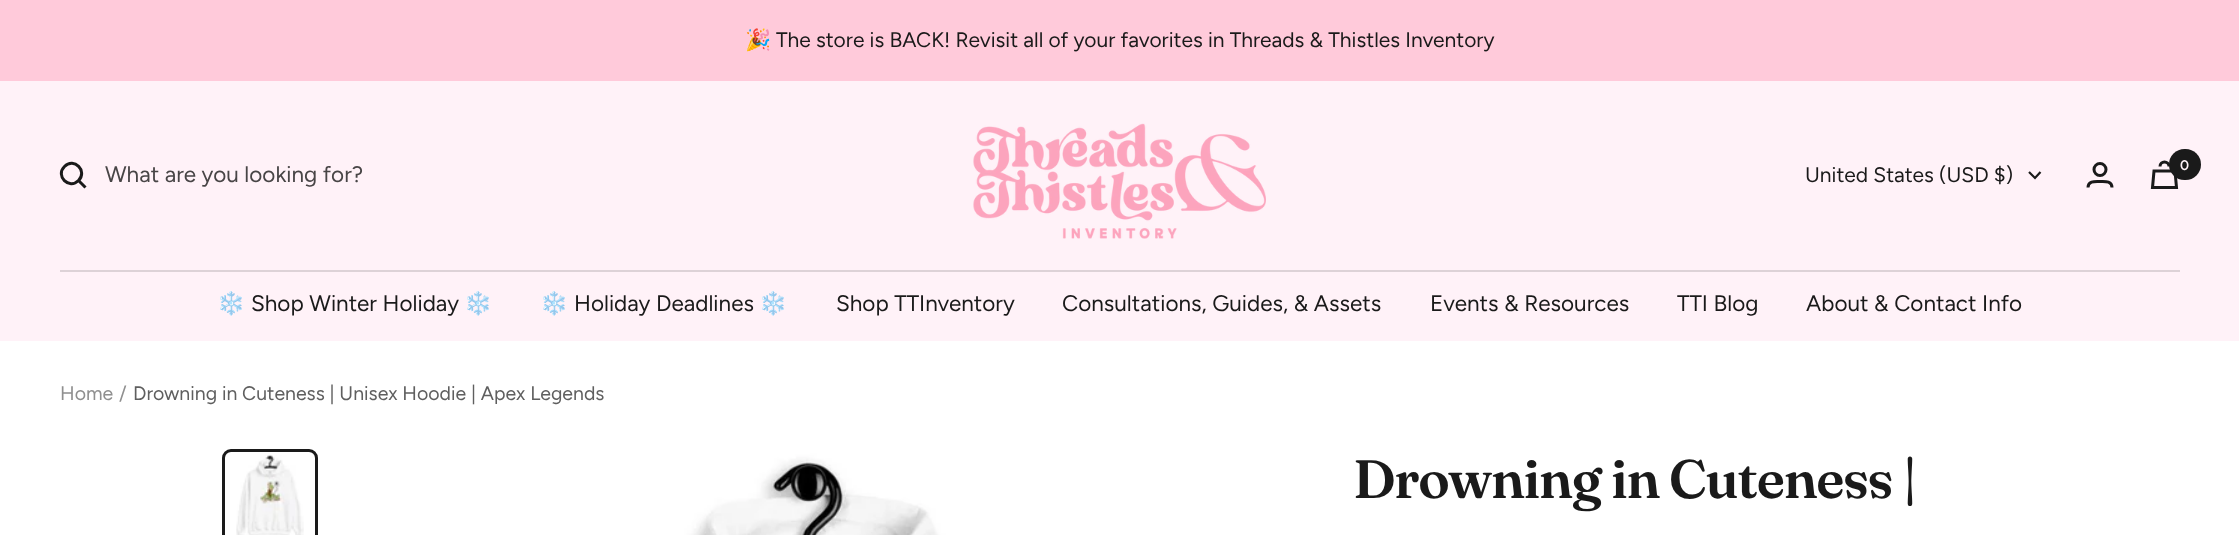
<!DOCTYPE html>
<meta charset="utf-8">
<style>body { margin: 0 } canvas { display: block }</style>
<canvas id="canvas" width="2239" height="535"></canvas>
<img id="img1" src="img_01.png" hidden>
<img id="img2" src="img_02.png" hidden>
<img id="img3" src="img_03.png" hidden>
<script>
window.onload = function () {
	const canvas = document.getElementById("canvas");
	const ctx = canvas.getContext("2d");
	ctx.miterLimit = 4;
	ctx.fontKerning = "normal";
	function txt(s, x, y) {
		ctx.fillText(s, x, y);
	}
	function fill(x, y, w, h) {
		ctx.fillRect(x, y, w, h);
	}
	function round(x, y, w, h, r) {
		ctx.beginPath();
		ctx.roundRect(x, y, w, h, r);
		ctx.fill();
	}
	function img(id, x, y, w, h) {
		ctx.drawImage(document.getElementById(id), x, y, w, h);
	}

	ctx.fillStyle = "#FFFFFF";
	fill(0, 0, 2239, 535);
	ctx.fillStyle = "#FFCADA";
	fill(0, 0, 2239, 81);
	ctx.fillStyle = "#FFF2F8";
	fill(0, 81, 2239, 260);
	ctx.beginPath();
	ctx.moveTo(78.5, 180.5);
	ctx.bezierCurveTo(88, 171, 74, 157, 64.5, 166.5);
	ctx.bezierCurveTo(55, 176, 69, 190, 78.5, 180.5);
	ctx.closePath();
	ctx.moveTo(78.5, 180.5);
	ctx.lineTo(85.5, 187.5);
	ctx.strokeStyle = "#1A1A1A";
	ctx.lineWidth = 3;
	ctx.stroke();
	img("img1", 973, 123, 293, 116);
	ctx.beginPath();
	ctx.moveTo(2029, 172);
	ctx.lineTo(2035, 178);
	ctx.lineTo(2040.5, 172);
	ctx.lineWidth = 2.2;
	ctx.stroke();
	ctx.beginPath();
	ctx.arc(2100, 169.5, 6, 0, Math.PI * 2);
	ctx.lineWidth = 3;
	ctx.stroke();
	ctx.beginPath();
	ctx.moveTo(2088, 187.5);
	ctx.bezierCurveTo(2088, 180.5, 2095.5, 181.5, 2100, 181.5);
	ctx.bezierCurveTo(2104.5, 181.5, 2112, 180.5, 2112, 187.5);
	ctx.stroke();
	ctx.beginPath();
	ctx.moveTo(2154, 171);
	ctx.lineTo(2175, 171);
	ctx.lineTo(2176.5, 187.5);
	ctx.lineTo(2152.5, 187.5);
	ctx.closePath();
	ctx.moveTo(2169, 166.5);
	ctx.bezierCurveTo(2169, 160.5, 2160, 160.5, 2160, 166.5);
	ctx.stroke();
	ctx.fillStyle = "#1A1A1A";
	round(2169, 149, 32, 31, 15.5);
	ctx.fillStyle = "#DDD2D7";
	fill(60, 270, 2120, 2);
	img("img2", 236, 454, 68, 81);
	ctx.beginPath();
	ctx.roundRect(223.5, 450.5, 93, 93, 7.5);
	ctx.stroke();
	img("img3", 372, 449, 873, 86);
	ctx.font = "21px Noto Color Emoji";
	ctx.fillStyle = "#1A1A1A";
	txt("🎉", 745, 47);
	ctx.font = "21px Figtree";
	txt("The store is BACK! Revisit all of your favorites in Threads & Thistles Inventory", 776, 47);
	ctx.font = "22.5px Figtree";
	ctx.fillStyle = "#484546";
	txt("What are you looking for?", 105, 182);
	ctx.font = "21px Figtree";
	ctx.fillStyle = "#1A1A1A";
	txt("United States (USD $)", 1805, 182);
	ctx.font = "600 14px Figtree";
	ctx.fillStyle = "#FFF2F8";
	txt("0", 2180, 170);
	ctx.font = "22.5px Noto Color Emoji";
	ctx.fillStyle = "#1A1A1A";
	txt("❄️", 217, 311);
	ctx.font = "22.5px Figtree";
	txt("Shop Winter Holiday", 251, 311);
	ctx.font = "22.5px Noto Color Emoji";
	txt("❄️", 464, 311);
	txt("❄️", 540, 311);
	ctx.font = "22.5px Figtree";
	txt("Holiday Deadlines", 574, 311);
	ctx.font = "22.5px Noto Color Emoji";
	txt("❄️", 759, 311);
	ctx.font = "22.5px Figtree";
	txt("Shop TTInventory", 836, 311);
	txt("Consultations, Guides, & Assets", 1062, 311);
	txt("Events & Resources", 1430, 311);
	txt("TTI Blog", 1677, 311);
	txt("About & Contact Info", 1806, 311);
	ctx.font = "19.5px Figtree";
	ctx.fillStyle = "#8F8F8F";
	txt("Home", 60, 400);
	txt("/", 119, 400);
	ctx.fillStyle = "#5F5F5F";
	txt("Drowning in Cuteness | Unisex Hoodie | Apex Legends", 133, 400);
	ctx.letterSpacing = "-1.2px";
	ctx.font = "600 54px Fraunces";
	ctx.fillStyle = "#1A1A1A";
	txt("Drowning in Cuteness |", 1353, 498);
};
</script>
